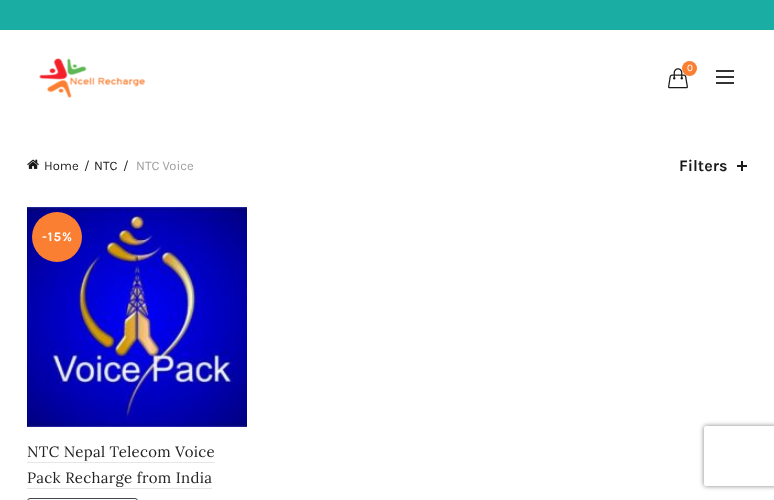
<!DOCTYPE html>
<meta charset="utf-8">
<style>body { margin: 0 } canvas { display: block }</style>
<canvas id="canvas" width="774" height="500"></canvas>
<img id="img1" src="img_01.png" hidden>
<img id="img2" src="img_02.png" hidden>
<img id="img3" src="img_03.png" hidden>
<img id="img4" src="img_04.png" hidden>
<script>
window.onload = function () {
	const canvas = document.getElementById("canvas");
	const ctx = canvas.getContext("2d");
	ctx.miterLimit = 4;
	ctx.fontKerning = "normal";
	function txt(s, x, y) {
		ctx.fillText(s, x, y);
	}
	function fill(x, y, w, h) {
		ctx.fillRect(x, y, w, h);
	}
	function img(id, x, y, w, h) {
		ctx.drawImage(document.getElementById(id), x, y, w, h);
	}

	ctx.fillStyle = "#FFFFFF";
	fill(0, 0, 774, 500);
	ctx.fillStyle = "#1AADA3";
	fill(0, 0, 774, 30);
	img("img1", 39, 58, 107, 40);
	img("img2", 668, 68, 20, 21);
	ctx.fillStyle = "#FA7F32";
	ctx.beginPath();
	ctx.arc(689.5, 68.5, 7.5, 0, Math.PI * 2);
	ctx.fill();
	ctx.fillStyle = "#333333";
	fill(716, 76, 18, 2);
	fill(716, 70, 18, 2);
	fill(716, 82, 18, 2);
	img("img3", 27, 159, 12, 10);
	ctx.fillStyle = "#1B1919";
	fill(741, 161, 2, 10);
	fill(737, 165, 10, 2);
	img("img4", 27, 207, 220, 220);
	ctx.fillStyle = "#FA7F32";
	ctx.beginPath();
	ctx.arc(57, 237, 25, 0, Math.PI * 2);
	ctx.fill();
	ctx.fillStyle = "#E6E6E6";
	fill(27, 462, 188, 1);
	fill(27, 488, 185, 1);
	ctx.beginPath();
	ctx.roundRect(27.5, 498.5, 110, 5, 2.5);
	ctx.strokeStyle = "#43454B";
	ctx.stroke();
	ctx.save();
	ctx.beginPath();
	ctx.moveTo(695, 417);
	ctx.lineTo(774, 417);
	ctx.lineTo(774, 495);
	ctx.lineTo(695, 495);
	ctx.closePath();
	ctx.moveTo(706, 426);
	ctx.lineTo(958, 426);
	ctx.bezierCurveTo(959, 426, 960, 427, 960, 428);
	ctx.lineTo(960, 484);
	ctx.bezierCurveTo(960, 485, 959, 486, 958, 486);
	ctx.lineTo(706, 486);
	ctx.bezierCurveTo(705, 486, 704, 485, 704, 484);
	ctx.lineTo(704, 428);
	ctx.bezierCurveTo(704, 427, 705, 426, 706, 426);
	ctx.closePath();
	ctx.clip("evenodd");
	ctx.fillStyle = "#808080";
	ctx.filter = "blur(2.5px)";
	ctx.beginPath();
	ctx.roundRect(704, 426, 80, 60, 2);
	ctx.fill();
	ctx.filter = "none";
	ctx.restore();
	ctx.font = "10px Karla";
	ctx.fillStyle = "#FFFFFF";
	txt("0", 687, 71);
	ctx.font = "13px Karla";
	ctx.fillStyle = "#1B1919";
	txt("Home", 44, 170);
	txt("/", 84, 170);
	txt("NTC", 94, 170);
	txt("/", 123, 170);
	ctx.fillStyle = "#9E9E9E";
	txt("NTC Voice", 136, 170);
	ctx.font = "bold 16px Karla";
	ctx.fillStyle = "#1B1919";
	txt("Filters", 679, 171);
	ctx.letterSpacing = "1px";
	ctx.font = "bold 13px Karla";
	ctx.fillStyle = "#FFFFFF";
	txt("-15%", 42, 241);
	ctx.letterSpacing = "0.3px";
	ctx.font = "15px Lora";
	ctx.fillStyle = "#252222";
	txt("NTC Nepal Telecom Voice", 27, 457);
	txt("Pack Recharge from India", 27, 483);
};
</script>
